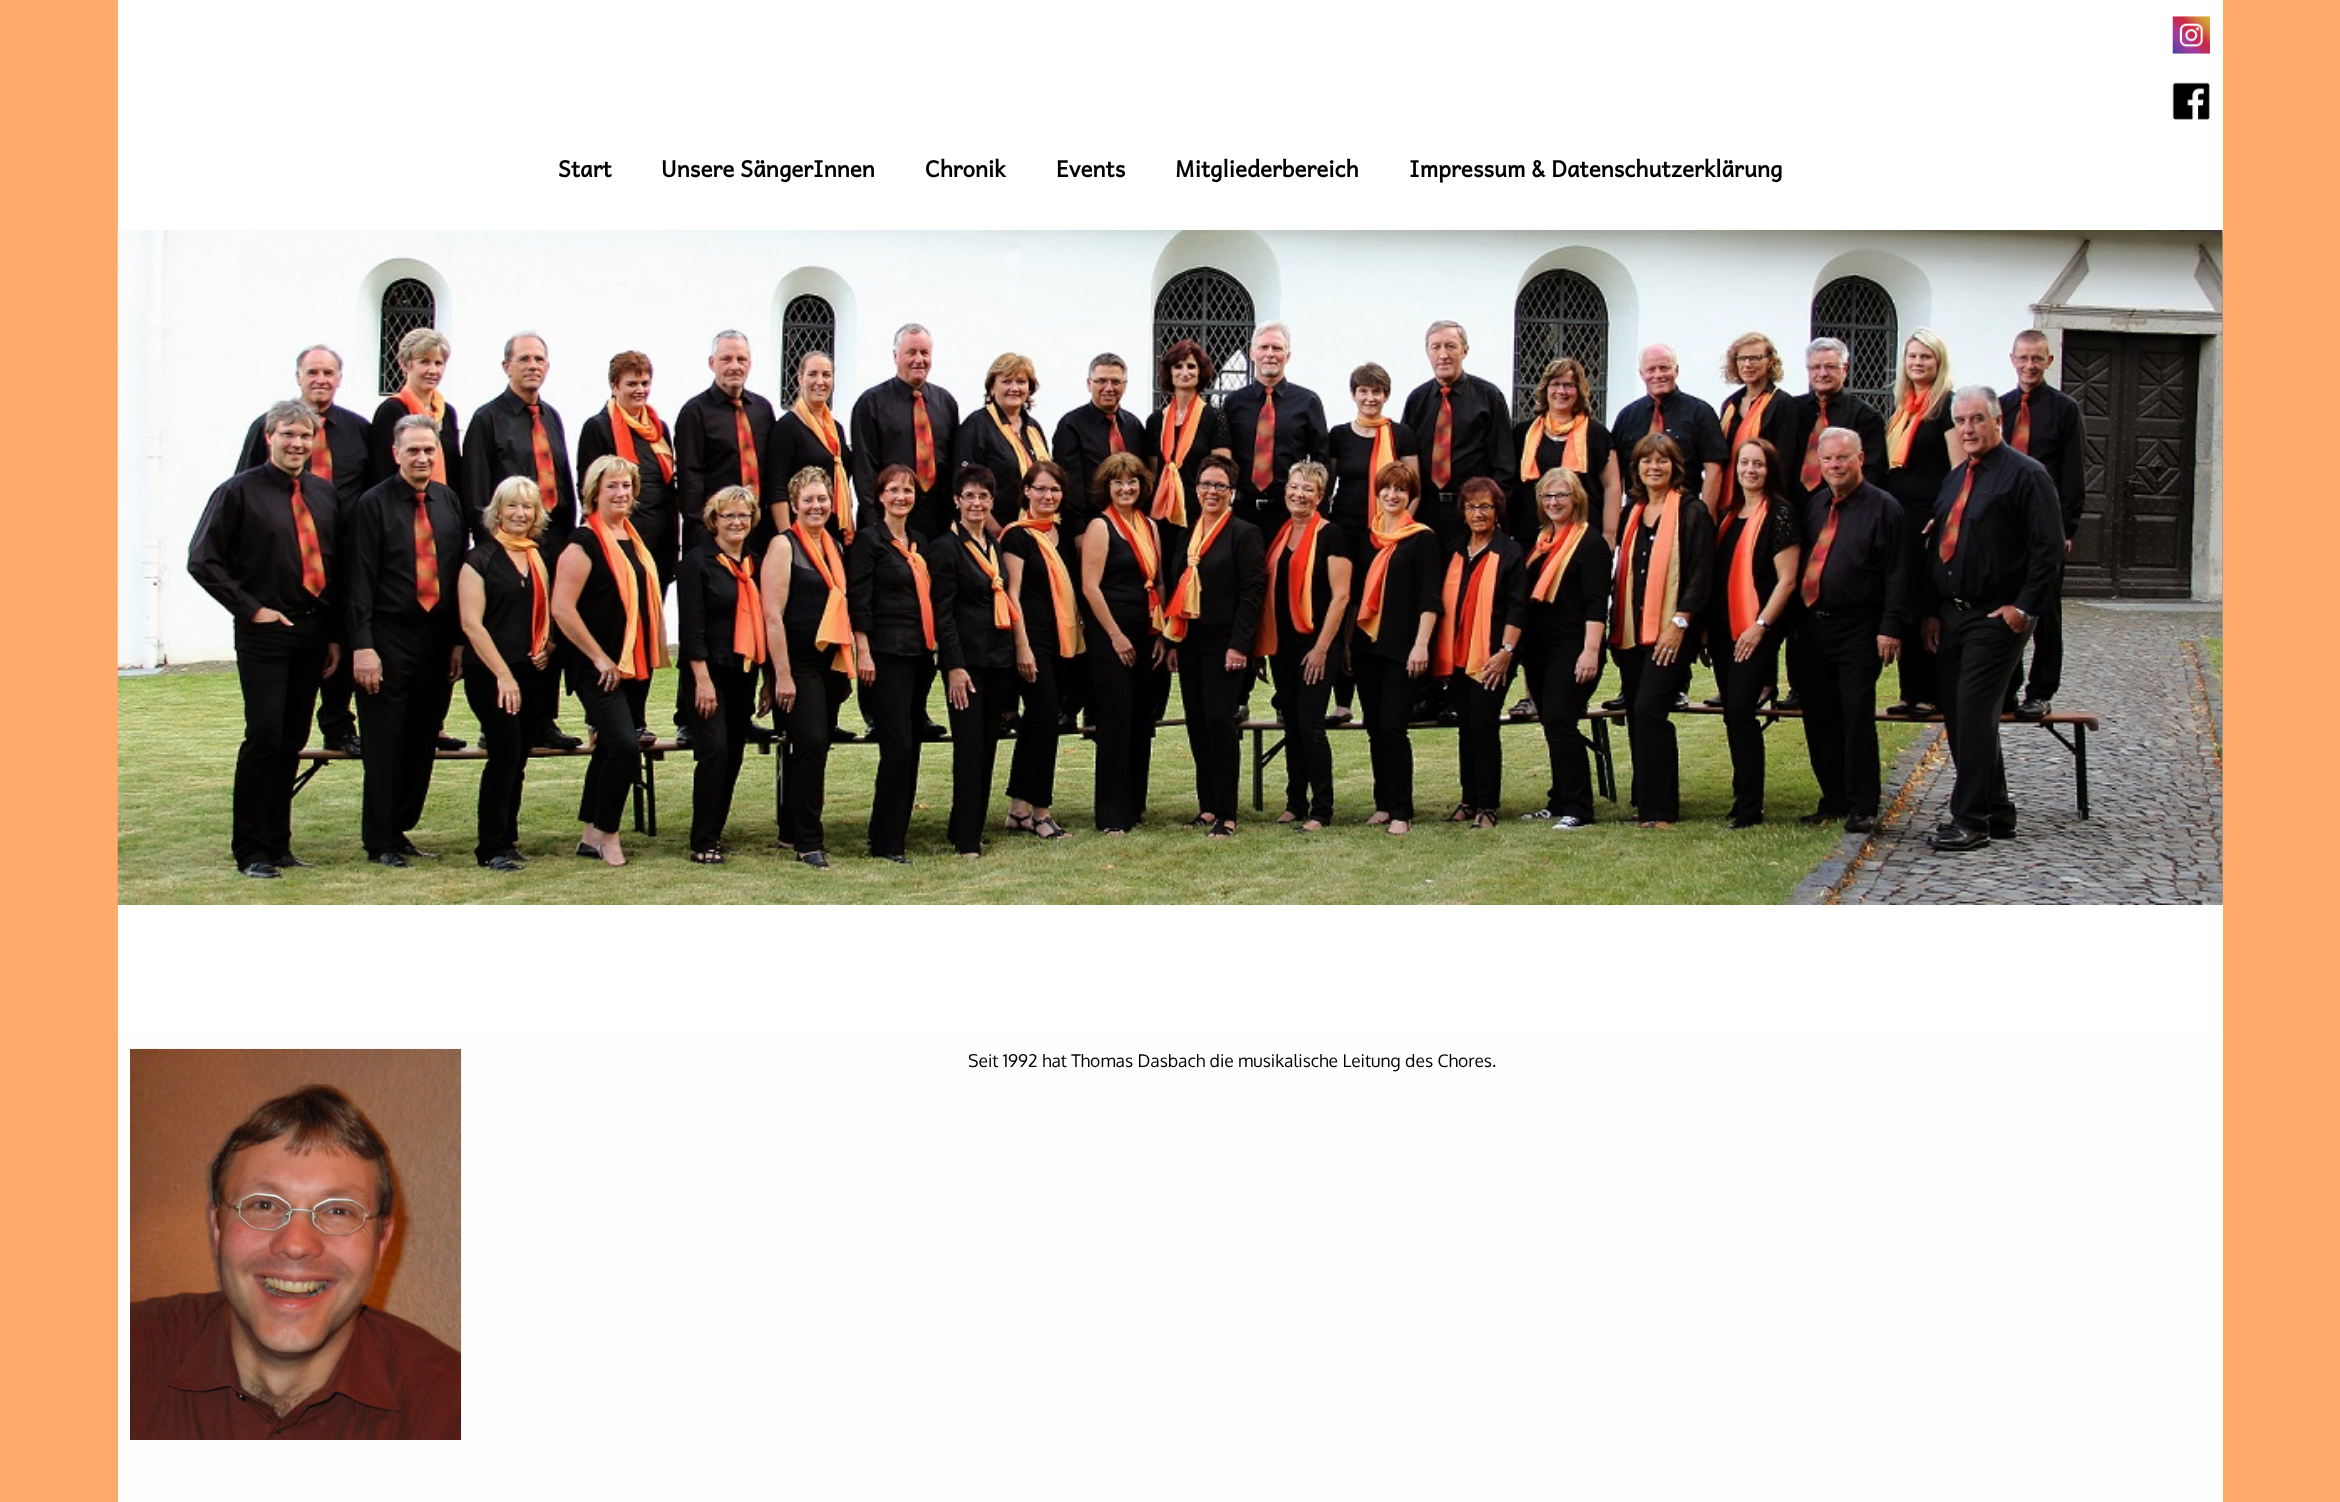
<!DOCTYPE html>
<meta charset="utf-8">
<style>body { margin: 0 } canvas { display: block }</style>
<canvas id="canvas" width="2340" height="1502"></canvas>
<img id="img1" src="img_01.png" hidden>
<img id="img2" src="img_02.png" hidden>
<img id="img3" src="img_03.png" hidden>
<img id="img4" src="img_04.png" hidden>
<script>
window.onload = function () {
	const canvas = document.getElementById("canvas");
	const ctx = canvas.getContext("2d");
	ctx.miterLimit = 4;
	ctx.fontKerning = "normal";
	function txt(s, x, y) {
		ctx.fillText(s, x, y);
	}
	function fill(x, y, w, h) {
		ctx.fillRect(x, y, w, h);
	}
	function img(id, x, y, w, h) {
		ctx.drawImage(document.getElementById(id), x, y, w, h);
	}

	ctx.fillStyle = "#FFA96B";
	fill(0, 0, 2340, 1502);
	ctx.fillStyle = "#FFFFFF";
	fill(118, 0, 2105, 1031);
	img("img1", 2172, 16, 38, 38);
	img("img2", 2172, 82, 38, 38);
	ctx.save();
	ctx.beginPath();
	ctx.rect(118, 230, 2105, 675);
	ctx.clip();
	ctx.fillStyle = "#4A4A4A";
	ctx.filter = "blur(3px)";
	ctx.beginPath();
	ctx.rect(118, 231, 2105, 675);
	ctx.fill();
	ctx.filter = "none";
	ctx.restore();
	img("img3", 117, 230, 2106, 675);
	ctx.fillStyle = "#FFFEFF";
	fill(118, 1033, 2105, 469);
	img("img4", 130, 1048, 332, 392);
	ctx.fillStyle = "#FCFBFD";
	fill(118, 1031, 2105, 2);
	ctx.font = "bold 22.5px Andika";
	ctx.fillStyle = "#000000";
	txt("Start", 558, 177);
	txt("Unsere SängerInnen", 661, 177);
	txt("Chronik", 925, 177);
	txt("Events", 1056, 177);
	txt("Mitgliederbereich", 1175, 177);
	txt("Impressum & Datenschutzerklärung", 1409, 177);
	ctx.font = "17.5px Oxygen";
	txt("Seit 1992 hat Thomas Dasbach die musikalische Leitung des Chores.", 968, 1067);
};
</script>
